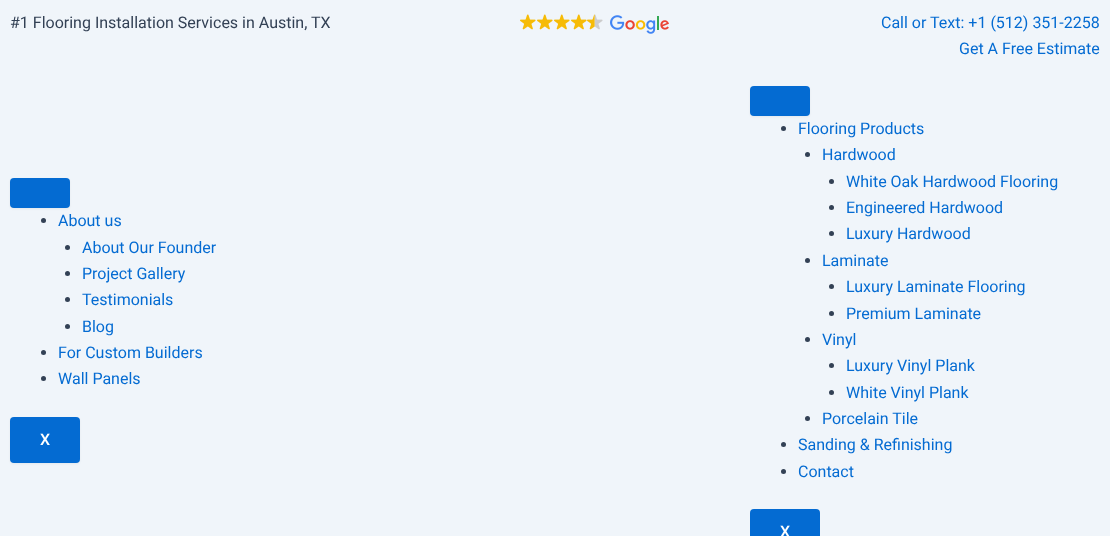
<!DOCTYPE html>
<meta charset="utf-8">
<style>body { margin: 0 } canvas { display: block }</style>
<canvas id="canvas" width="1110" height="536"></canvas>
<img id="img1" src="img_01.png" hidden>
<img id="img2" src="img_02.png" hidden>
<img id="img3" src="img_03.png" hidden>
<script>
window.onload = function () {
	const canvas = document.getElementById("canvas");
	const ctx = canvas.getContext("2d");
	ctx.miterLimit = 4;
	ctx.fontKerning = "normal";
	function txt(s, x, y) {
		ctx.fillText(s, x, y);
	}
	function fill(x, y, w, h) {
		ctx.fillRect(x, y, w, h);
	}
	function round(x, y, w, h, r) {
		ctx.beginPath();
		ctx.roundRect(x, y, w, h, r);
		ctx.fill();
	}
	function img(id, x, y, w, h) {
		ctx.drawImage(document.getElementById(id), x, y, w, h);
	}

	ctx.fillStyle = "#F0F5FA";
	fill(0, 0, 1110, 536);
	img("img1", 520, 14, 16, 16);
	img("img1", 537, 14, 16, 16);
	img("img1", 554, 14, 16, 16);
	img("img1", 571, 14, 16, 16);
	img("img2", 587, 14, 16, 16);
	img("img3", 610, 15, 59, 19);
	ctx.fillStyle = "rgba(0, 0, 0, 0.05)";
	ctx.filter = "blur(1px)";
	ctx.beginPath();
	ctx.roundRect(10, 179, 60, 30, 4);
	ctx.fill();
	ctx.filter = "none";
	ctx.fillStyle = "#046BD2";
	round(10, 178, 60, 30, 4);
	ctx.fillStyle = "#334155";
	ctx.beginPath();
	ctx.arc(43.5, 220.5, 2.5, 0, Math.PI * 2);
	ctx.fill();
	ctx.beginPath();
	ctx.arc(67.5, 247.5, 2.5, 0, Math.PI * 2);
	ctx.fill();
	ctx.beginPath();
	ctx.arc(67.5, 273.5, 2.5, 0, Math.PI * 2);
	ctx.fill();
	ctx.beginPath();
	ctx.arc(67.5, 299.5, 2.5, 0, Math.PI * 2);
	ctx.fill();
	ctx.beginPath();
	ctx.arc(67.5, 326.5, 2.5, 0, Math.PI * 2);
	ctx.fill();
	ctx.beginPath();
	ctx.arc(43.5, 352.5, 2.5, 0, Math.PI * 2);
	ctx.fill();
	ctx.beginPath();
	ctx.arc(43.5, 378.5, 2.5, 0, Math.PI * 2);
	ctx.fill();
	ctx.fillStyle = "rgba(0, 0, 0, 0.05)";
	ctx.filter = "blur(1px)";
	ctx.beginPath();
	ctx.roundRect(10, 418, 70, 46, 4);
	ctx.fill();
	ctx.filter = "none";
	ctx.fillStyle = "#046BD2";
	round(10, 417, 70, 46, 4);
	ctx.fillStyle = "rgba(0, 0, 0, 0.05)";
	ctx.filter = "blur(1px)";
	ctx.beginPath();
	ctx.roundRect(750, 87, 60, 30, 4);
	ctx.fill();
	ctx.filter = "none";
	ctx.fillStyle = "#046BD2";
	round(750, 86, 60, 30, 4);
	ctx.fillStyle = "#334155";
	ctx.beginPath();
	ctx.arc(783.5, 128.5, 2.5, 0, Math.PI * 2);
	ctx.fill();
	ctx.beginPath();
	ctx.arc(807.5, 154.5, 2.5, 0, Math.PI * 2);
	ctx.fill();
	ctx.beginPath();
	ctx.arc(831.5, 181.5, 2.5, 0, Math.PI * 2);
	ctx.fill();
	ctx.beginPath();
	ctx.arc(831.5, 207.5, 2.5, 0, Math.PI * 2);
	ctx.fill();
	ctx.beginPath();
	ctx.arc(831.5, 233.5, 2.5, 0, Math.PI * 2);
	ctx.fill();
	ctx.beginPath();
	ctx.arc(807.5, 260.5, 2.5, 0, Math.PI * 2);
	ctx.fill();
	ctx.beginPath();
	ctx.arc(831.5, 286.5, 2.5, 0, Math.PI * 2);
	ctx.fill();
	ctx.beginPath();
	ctx.arc(831.5, 313.5, 2.5, 0, Math.PI * 2);
	ctx.fill();
	ctx.beginPath();
	ctx.arc(807.5, 339.5, 2.5, 0, Math.PI * 2);
	ctx.fill();
	ctx.beginPath();
	ctx.arc(831.5, 365.5, 2.5, 0, Math.PI * 2);
	ctx.fill();
	ctx.beginPath();
	ctx.arc(831.5, 392.5, 2.5, 0, Math.PI * 2);
	ctx.fill();
	ctx.beginPath();
	ctx.arc(807.5, 418.5, 2.5, 0, Math.PI * 2);
	ctx.fill();
	ctx.beginPath();
	ctx.arc(783.5, 444.5, 2.5, 0, Math.PI * 2);
	ctx.fill();
	ctx.beginPath();
	ctx.arc(783.5, 471.5, 2.5, 0, Math.PI * 2);
	ctx.fill();
	ctx.fillStyle = "#046BD2";
	round(750, 509, 70, 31, 4);
	ctx.font = "16px Roboto";
	ctx.fillStyle = "#334155";
	txt("#1 Flooring Installation Services in Austin, TX", 10, 28);
	ctx.fillStyle = "#046BD2";
	txt("Call or Text: +1 (512) 351-2258", 881, 28);
	txt("Get A Free Estimate", 959, 54);
	txt("About us", 58, 226);
	txt("About Our Founder", 82, 253);
	txt("Project Gallery", 82, 279);
	txt("Testimonials", 82, 305);
	txt("Blog", 82, 332);
	txt("For Custom Builders", 58, 358);
	txt("Wall Panels", 58, 384);
	ctx.font = "500 16px Roboto";
	ctx.fillStyle = "#FFFFFF";
	txt("X", 40, 445);
	ctx.font = "16px Roboto";
	ctx.fillStyle = "#046BD2";
	txt("Flooring Products", 798, 134);
	txt("Hardwood", 822, 160);
	txt("White Oak Hardwood Flooring", 846, 187);
	txt("Engineered Hardwood", 846, 213);
	txt("Luxury Hardwood", 846, 239);
	txt("Laminate", 822, 266);
	txt("Luxury Laminate Flooring", 846, 292);
	txt("Premium Laminate", 846, 319);
	txt("Vinyl", 822, 345);
	txt("Luxury Vinyl Plank", 846, 371);
	txt("White Vinyl Plank", 846, 398);
	txt("Porcelain Tile", 822, 424);
	txt("Sanding & Refinishing", 798, 450);
	txt("Contact", 798, 477);
	ctx.font = "500 16px Roboto";
	ctx.fillStyle = "#FFFFFF";
	txt("X", 780, 537);
};
</script>
